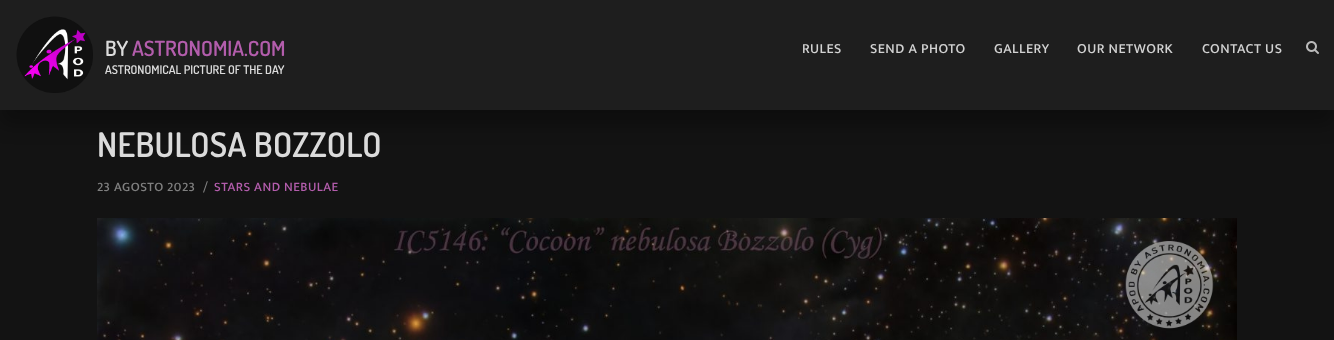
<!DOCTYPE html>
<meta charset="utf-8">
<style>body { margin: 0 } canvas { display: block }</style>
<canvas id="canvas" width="1334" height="340"></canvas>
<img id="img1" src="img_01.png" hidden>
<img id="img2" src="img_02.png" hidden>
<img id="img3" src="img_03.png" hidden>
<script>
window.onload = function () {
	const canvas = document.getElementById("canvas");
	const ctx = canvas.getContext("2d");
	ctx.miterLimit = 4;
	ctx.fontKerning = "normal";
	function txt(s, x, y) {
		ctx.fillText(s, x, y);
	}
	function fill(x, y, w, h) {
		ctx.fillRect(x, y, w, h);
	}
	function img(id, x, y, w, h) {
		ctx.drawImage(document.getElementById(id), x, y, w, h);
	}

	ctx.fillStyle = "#131313";
	fill(0, 0, 1334, 340);
	ctx.fillStyle = "rgba(0, 0, 0, 0.29)";
	ctx.filter = "blur(9px)";
	ctx.beginPath();
	ctx.rect(0, 15, 1334, 110);
	ctx.fill();
	ctx.filter = "none";
	ctx.fillStyle = "#1E1E1E";
	fill(0, 0, 1334, 110);
	img("img1", 16, 16, 77, 77);
	img("img2", 1306, 41, 13, 13);
	img("img3", 97, 218, 1140, 122);
	ctx.font = "600 21px Dosis";
	ctx.fillStyle = "#DBDBDB";
	txt("BY", 105, 56);
	ctx.fillStyle = "#B35DAC";
	txt("ASTRONOMIA.COM", 132, 56);
	ctx.font = "600 12px Dosis";
	ctx.fillStyle = "#DBDBDB";
	txt("ASTRONOMICAL PICTURE OF THE DAY", 105, 74);
	ctx.letterSpacing = "0.5px";
	ctx.font = "500 14px Mukta";
	ctx.fillStyle = "#D2D2D2";
	txt("RULES", 802, 53);
	txt("SEND A PHOTO", 870, 53);
	txt("GALLERY", 994, 53);
	txt("OUR NETWORK", 1077, 53);
	txt("CONTACT US", 1202, 53);
	ctx.letterSpacing = "0.25px";
	ctx.font = "600 34px Dosis";
	ctx.fillStyle = "#DBDBDB";
	txt("NEBULOSA BOZZOLO", 97, 157);
	ctx.letterSpacing = "0.5px";
	ctx.font = "500 13px Mukta";
	ctx.fillStyle = "#808080";
	txt("23 AGOSTO 2023", 97, 191);
	txt("/", 203, 191);
	ctx.fillStyle = "#B35DAC";
	txt("STARS AND NEBULAE", 214, 191);
};
</script>
